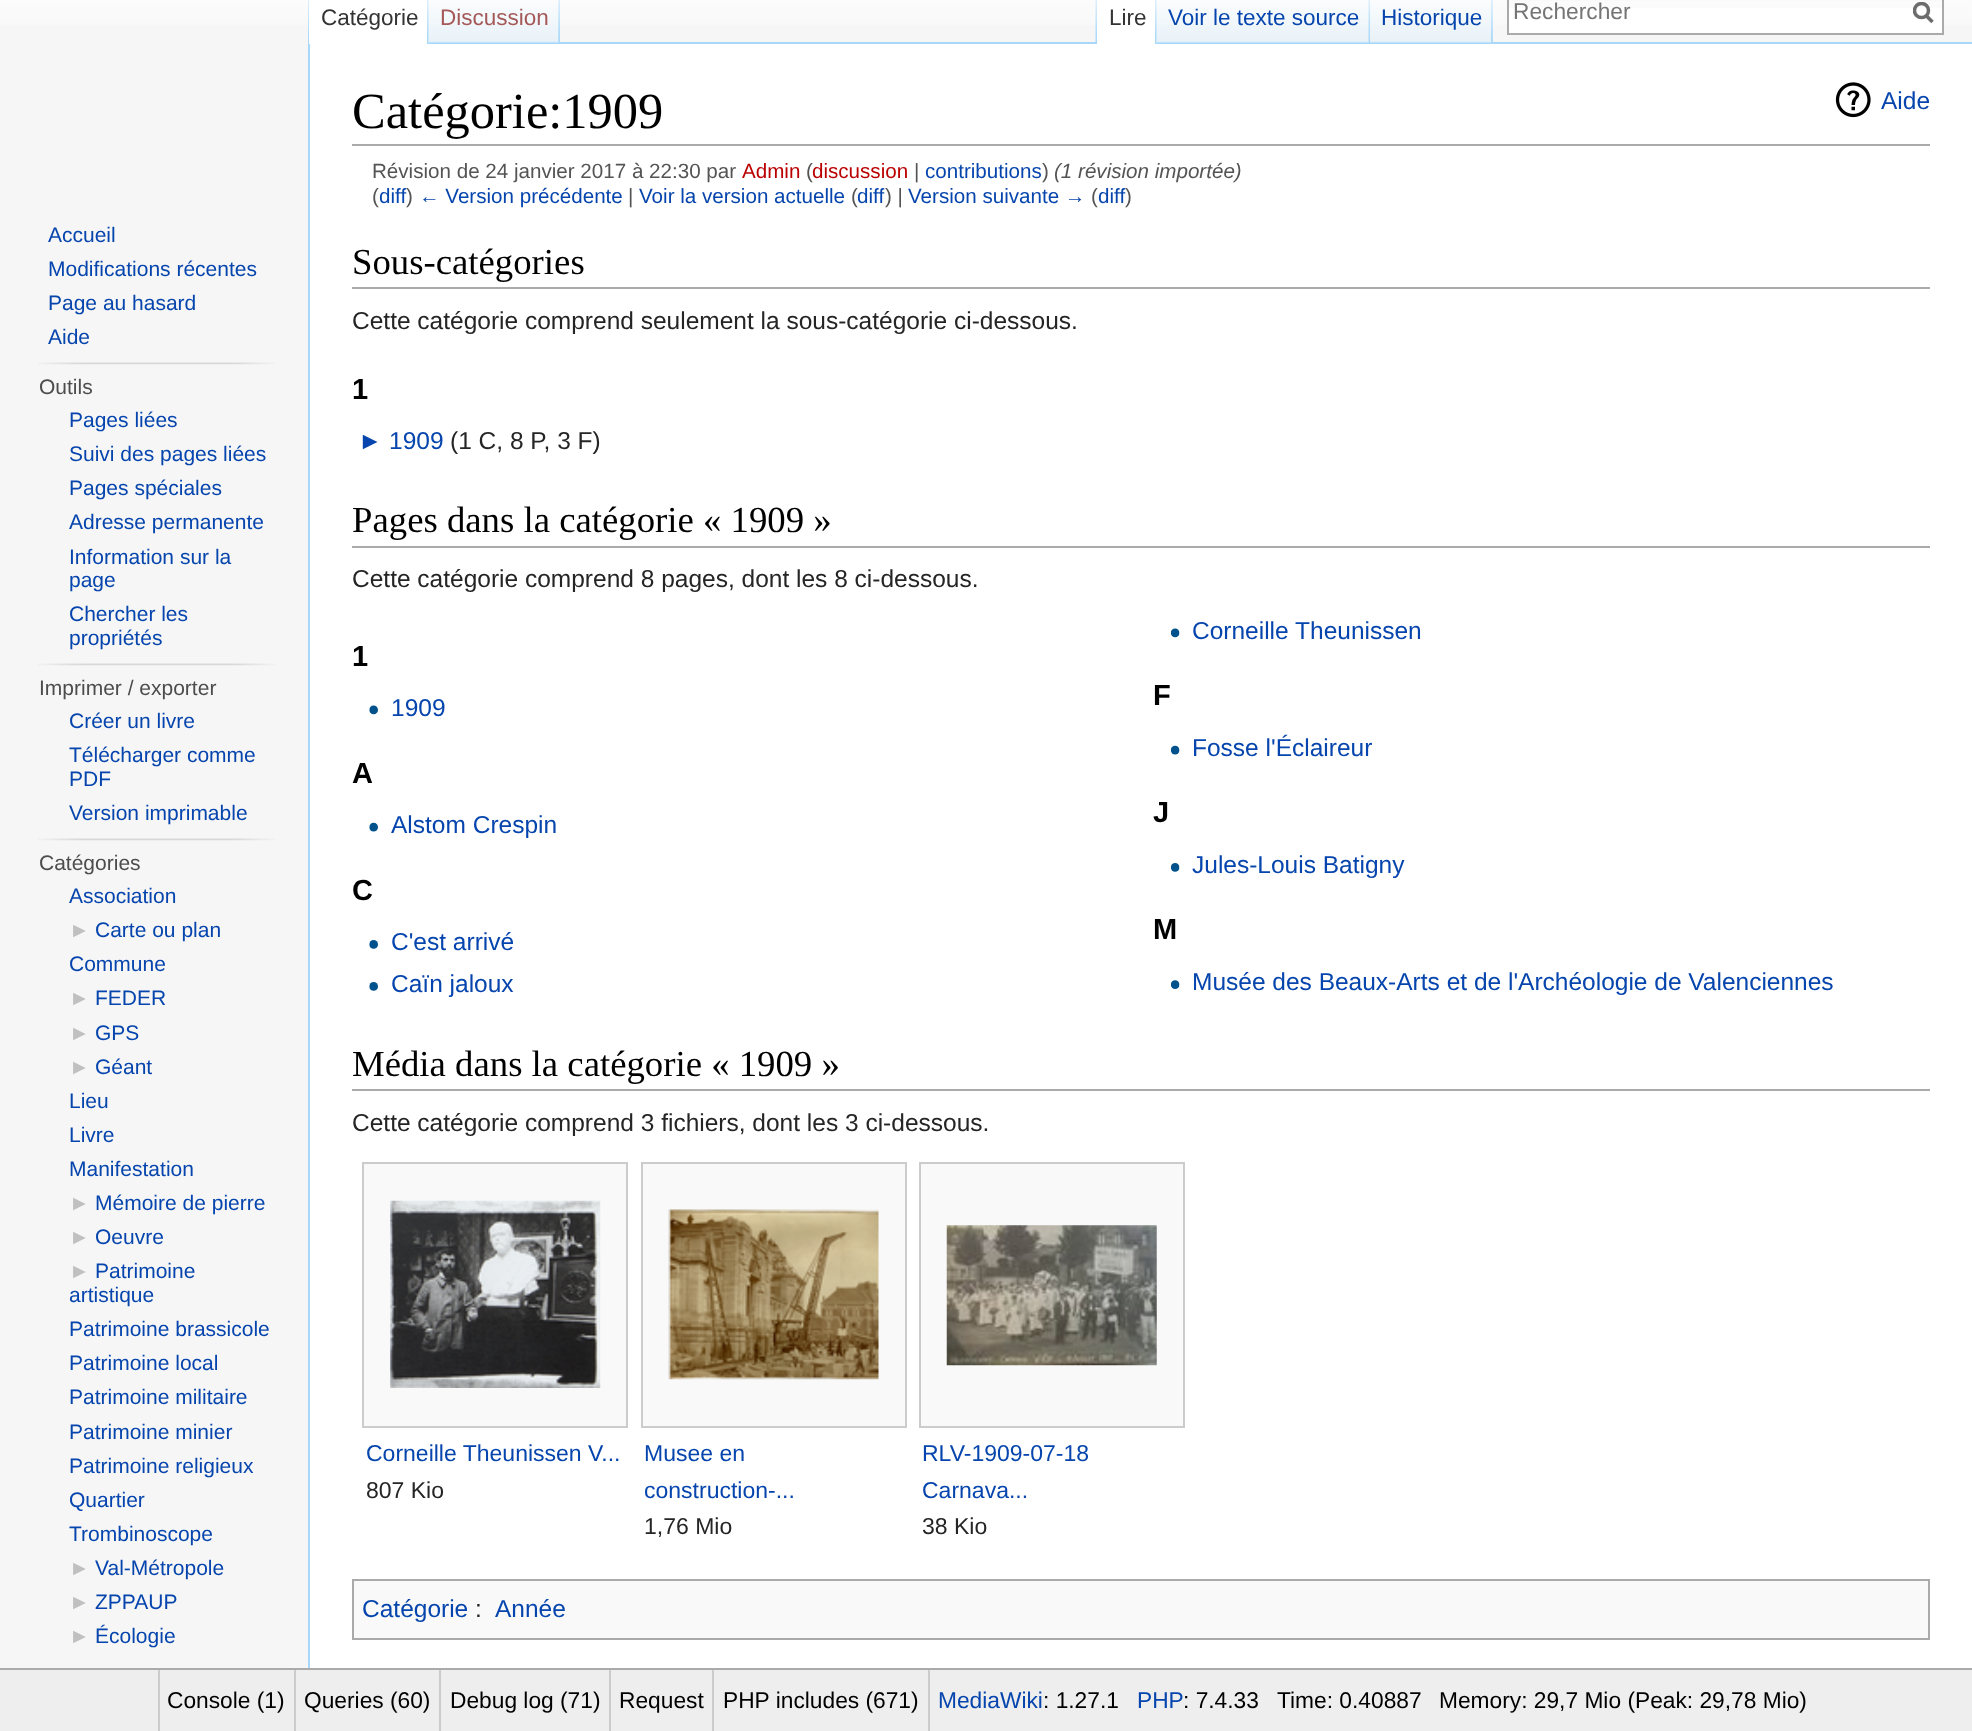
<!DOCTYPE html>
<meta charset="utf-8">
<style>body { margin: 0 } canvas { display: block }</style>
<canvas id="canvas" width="1972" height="1731"></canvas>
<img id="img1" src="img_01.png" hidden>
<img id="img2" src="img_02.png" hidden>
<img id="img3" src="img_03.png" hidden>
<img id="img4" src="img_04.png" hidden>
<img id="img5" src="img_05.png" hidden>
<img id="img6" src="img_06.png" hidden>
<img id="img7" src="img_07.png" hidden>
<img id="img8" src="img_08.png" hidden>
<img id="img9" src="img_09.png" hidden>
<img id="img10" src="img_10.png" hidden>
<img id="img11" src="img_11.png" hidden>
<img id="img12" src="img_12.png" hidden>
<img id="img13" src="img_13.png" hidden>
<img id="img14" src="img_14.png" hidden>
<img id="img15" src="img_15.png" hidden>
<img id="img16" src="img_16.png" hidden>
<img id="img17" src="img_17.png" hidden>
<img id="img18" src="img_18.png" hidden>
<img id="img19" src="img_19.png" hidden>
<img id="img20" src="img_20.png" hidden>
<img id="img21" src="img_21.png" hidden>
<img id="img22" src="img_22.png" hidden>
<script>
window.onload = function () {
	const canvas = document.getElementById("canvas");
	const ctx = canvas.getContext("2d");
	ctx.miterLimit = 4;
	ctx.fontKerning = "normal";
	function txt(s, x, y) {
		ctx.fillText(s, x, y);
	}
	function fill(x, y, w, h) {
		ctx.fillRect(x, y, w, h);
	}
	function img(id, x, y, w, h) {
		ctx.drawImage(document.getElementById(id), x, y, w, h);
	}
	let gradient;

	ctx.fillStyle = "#F6F6F6";
	fill(0, 0, 1972, 1731);
	gradient = ctx.createLinearGradient(986, -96, 986, 44);
	gradient.addColorStop(0.5, "#FFFFFF");
	gradient.addColorStop(1, "#F6F6F6");
	ctx.fillStyle = gradient;
	fill(0, 0, 1972, 25);
	img("img1", 308, 0, 1, 42);
	ctx.fillStyle = "#A7D7F9";
	fill(308, 42, 2, 1626);
	ctx.fillStyle = "#FFFFFF";
	fill(309, 0, 120, 44);
	img("img2", 427, 0, 2, 44);
	img("img3", 428, 0, 132, 44);
	img("img4", 558, 0, 2, 43);
	img("img5", 1095, 0, 2, 42);
	img("img6", 1492, 0, 1, 42);
	ctx.fillStyle = "#A7D7F9";
	fill(560, 42, 1412, 2);
	ctx.fillStyle = "#FFFFFF";
	fill(1097, 0, 60, 44);
	img("img2", 1155, 0, 2, 44);
	img("img7", 1156, 0, 215, 44);
	img("img8", 1368, 0, 3, 43);
	img("img9", 1370, 0, 123, 44);
	img("img10", 1491, 0, 2, 44);
	fill(1509, 8, 433, 25);
	ctx.fillStyle = "#F9F9F9";
	fill(1507, 0, 437, 1);
	ctx.strokeStyle = "#AAAAAA";
	ctx.lineWidth = 2;
	ctx.strokeRect(1508, -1, 435, 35);
	ctx.beginPath();
	ctx.moveTo(1932.5, 22);
	ctx.lineTo(1925.5, 15);
	ctx.strokeStyle = "#6C6C6C";
	ctx.lineWidth = 3.5;
	ctx.stroke();
	ctx.save();
	ctx.beginPath();
	ctx.rect(1913, 2, 21, 23);
	ctx.clip();
	ctx.beginPath();
	ctx.arc(1921.5, 10.5, 7, 0, Math.PI * 2);
	ctx.stroke();
	ctx.restore();
	img("img11", 38, 362, 237, 3);
	img("img11", 38, 663, 237, 3);
	img("img11", 38, 838, 237, 3);
	ctx.fillStyle = "#FFFFFF";
	fill(310, 44, 1662, 1624);
	ctx.fillStyle = "#AAAAAA";
	fill(352, 144, 1578, 2);
	img("img12", 1835, 82, 36, 36);
	fill(352, 287, 1578, 2);
	fill(352, 546, 1578, 2);
	img("img13", 1171, 628, 9, 10);
	img("img14", 369, 940, 9, 9);
	img("img14", 369, 982, 9, 9);
	img("img15", 369, 705, 9, 10);
	img("img16", 1171, 745, 9, 10);
	img("img17", 369, 822, 9, 10);
	img("img18", 1171, 863, 9, 9);
	img("img19", 1171, 980, 9, 9);
	fill(352, 1089, 1578, 2);
	ctx.fillStyle = "#F9F9F9";
	ctx.beginPath();
	ctx.rect(363, 1163, 264, 264);
	ctx.fill();
	ctx.strokeStyle = "#CCCCCC";
	ctx.lineWidth = 2;
	ctx.stroke();
	img("img20", 390, 1200, 211, 188);
	ctx.beginPath();
	ctx.rect(642, 1163, 264, 264);
	ctx.fill();
	ctx.stroke();
	img("img21", 668, 1209, 211, 171);
	ctx.beginPath();
	ctx.rect(920, 1163, 264, 264);
	ctx.fill();
	ctx.stroke();
	img("img22", 946, 1225, 211, 141);
	ctx.beginPath();
	ctx.rect(353, 1580, 1576, 59);
	ctx.fill();
	ctx.strokeStyle = "#AAAAAA";
	ctx.stroke();
	ctx.fillStyle = "#EEEEEE";
	fill(0, 1670, 1972, 61);
	ctx.fillStyle = "#AAAAAA";
	fill(0, 1668, 1972, 2);
	ctx.fillStyle = "#CCCCCC";
	fill(294, 1670, 2, 61);
	fill(158, 1670, 2, 61);
	fill(439, 1670, 2, 61);
	fill(609, 1670, 2, 61);
	fill(712, 1670, 2, 61);
	fill(928, 1670, 2, 61);
	ctx.font = "22.5px Liberation Sans";
	ctx.fillStyle = "#333333";
	txt("Catégorie", 321, 25);
	ctx.fillStyle = "#A55858";
	txt("Discussion", 440, 25);
	ctx.fillStyle = "#333333";
	txt("Lire", 1109, 25);
	ctx.fillStyle = "#0645AD";
	txt("Voir le texte source", 1168, 25);
	txt("Historique", 1381, 25);
	ctx.font = "22.75px Liberation Sans";
	ctx.fillStyle = "#757575";
	txt("Rechercher", 1513, 19);
	ctx.font = "21px Liberation Sans";
	ctx.fillStyle = "#0645AD";
	txt("Accueil", 48, 242);
	txt("Modifications récentes", 48, 276);
	txt("Page au hasard", 48, 310);
	txt("Aide", 48, 344);
	ctx.fillStyle = "#4D4D4D";
	txt("Outils", 39, 394);
	ctx.fillStyle = "#0645AD";
	txt("Pages liées", 69, 427);
	txt("Suivi des pages liées", 69, 461);
	txt("Pages spéciales", 69, 495);
	txt("Adresse permanente", 69, 529);
	txt("Information sur la", 69, 564);
	txt("page", 69, 587);
	txt("Chercher les", 69, 621);
	txt("propriétés", 69, 645);
	ctx.fillStyle = "#4D4D4D";
	txt("Imprimer / exporter", 39, 695);
	ctx.fillStyle = "#0645AD";
	txt("Créer un livre", 69, 728);
	txt("Télécharger comme", 69, 762);
	txt("PDF", 69, 786);
	txt("Version imprimable", 69, 820);
	ctx.fillStyle = "#4D4D4D";
	txt("Catégories", 39, 870);
	ctx.fillStyle = "#0645AD";
	txt("Association", 69, 903);
	ctx.fillStyle = "#C0C0C0";
	txt("►", 69, 937);
	ctx.fillStyle = "#0645AD";
	txt("Carte ou plan", 95, 937);
	txt("Commune", 69, 971);
	ctx.fillStyle = "#C0C0C0";
	txt("►", 69, 1005);
	ctx.fillStyle = "#0645AD";
	txt("FEDER", 95, 1005);
	ctx.fillStyle = "#C0C0C0";
	txt("►", 69, 1040);
	ctx.fillStyle = "#0645AD";
	txt("GPS", 95, 1040);
	ctx.fillStyle = "#C0C0C0";
	txt("►", 69, 1074);
	ctx.fillStyle = "#0645AD";
	txt("Géant", 95, 1074);
	txt("Lieu", 69, 1108);
	txt("Livre", 69, 1142);
	txt("Manifestation", 69, 1176);
	ctx.fillStyle = "#C0C0C0";
	txt("►", 69, 1210);
	ctx.fillStyle = "#0645AD";
	txt("Mémoire de pierre", 95, 1210);
	ctx.fillStyle = "#C0C0C0";
	txt("►", 69, 1244);
	ctx.fillStyle = "#0645AD";
	txt("Oeuvre", 95, 1244);
	ctx.fillStyle = "#C0C0C0";
	txt("►", 69, 1278);
	ctx.fillStyle = "#0645AD";
	txt("Patrimoine", 95, 1278);
	txt("artistique", 69, 1302);
	txt("Patrimoine brassicole", 69, 1336);
	txt("Patrimoine local", 69, 1370);
	txt("Patrimoine militaire", 69, 1404);
	txt("Patrimoine minier", 69, 1439);
	txt("Patrimoine religieux", 69, 1473);
	txt("Quartier", 69, 1507);
	txt("Trombinoscope", 69, 1541);
	ctx.fillStyle = "#C0C0C0";
	txt("►", 69, 1575);
	ctx.fillStyle = "#0645AD";
	txt("Val-Métropole", 95, 1575);
	ctx.fillStyle = "#C0C0C0";
	txt("►", 69, 1609);
	ctx.fillStyle = "#0645AD";
	txt("ZPPAUP", 95, 1609);
	ctx.fillStyle = "#C0C0C0";
	txt("►", 69, 1643);
	ctx.fillStyle = "#0645AD";
	txt("Écologie", 95, 1643);
	ctx.font = "50.5px Liberation Serif";
	ctx.fillStyle = "#000000";
	txt("Catégorie:1909", 352, 128);
	ctx.font = "24.5px Liberation Sans";
	ctx.fillStyle = "#0645AD";
	txt("Aide", 1881, 109);
	ctx.font = "20.6px Liberation Sans";
	ctx.fillStyle = "#545454";
	txt("Révision de 24 janvier 2017 à 22:30 par", 372, 178);
	ctx.fillStyle = "#BA0000";
	txt("Admin", 742, 178);
	ctx.fillStyle = "#545454";
	txt("(", 806, 178);
	ctx.fillStyle = "#BA0000";
	txt("discussion", 812, 178);
	ctx.fillStyle = "#545454";
	txt("|", 914, 178);
	ctx.fillStyle = "#0645AD";
	txt("contributions", 925, 178);
	ctx.fillStyle = "#545454";
	txt(")", 1042, 178);
	ctx.font = "italic 20.6px Liberation Sans";
	txt("(1 révision importée)", 1054, 178);
	ctx.font = "20.6px Liberation Sans";
	txt("(", 372, 203);
	ctx.fillStyle = "#0645AD";
	txt("diff", 379, 203);
	ctx.fillStyle = "#545454";
	txt(")", 406, 203);
	ctx.fillStyle = "#0645AD";
	txt("← Version précédente", 419, 203);
	ctx.fillStyle = "#545454";
	txt("|", 628, 203);
	ctx.fillStyle = "#0645AD";
	txt("Voir la version actuelle", 639, 203);
	ctx.fillStyle = "#545454";
	txt("(", 851, 203);
	ctx.fillStyle = "#0645AD";
	txt("diff", 857, 203);
	ctx.fillStyle = "#545454";
	txt(") |", 885, 203);
	ctx.fillStyle = "#0645AD";
	txt("Version suivante →", 908, 203);
	ctx.fillStyle = "#545454";
	txt("(", 1091, 203);
	ctx.fillStyle = "#0645AD";
	txt("diff", 1098, 203);
	ctx.fillStyle = "#545454";
	txt(")", 1125, 203);
	ctx.font = "36.75px Liberation Serif";
	ctx.fillStyle = "#000000";
	txt("Sous-catégories", 352, 274);
	ctx.font = "24.5px Liberation Sans";
	ctx.fillStyle = "#252525";
	txt("Cette catégorie comprend seulement la sous-catégorie ci-dessous.", 352, 329);
	ctx.font = "bold 29px Liberation Sans";
	ctx.fillStyle = "#000000";
	txt("1", 352, 399);
	ctx.font = "24.5px Liberation Sans";
	ctx.fillStyle = "#0645AD";
	txt("► 1909", 358, 449);
	ctx.fillStyle = "#252525";
	txt("(1 C, 8 P, 3 F)", 450, 449);
	ctx.font = "36.75px Liberation Serif";
	ctx.fillStyle = "#000000";
	txt("Pages dans la catégorie « 1909 »", 352, 532);
	ctx.font = "24.5px Liberation Sans";
	ctx.fillStyle = "#252525";
	txt("Cette catégorie comprend 8 pages, dont les 8 ci-dessous.", 352, 587);
	ctx.font = "bold 29px Liberation Sans";
	ctx.fillStyle = "#000000";
	txt("C", 352, 900);
	ctx.font = "24.5px Liberation Sans";
	ctx.fillStyle = "#0645AD";
	txt("Corneille Theunissen", 1192, 639);
	txt("C'est arrivé", 391, 950);
	txt("Caïn jaloux", 391, 992);
	ctx.font = "bold 29px Liberation Sans";
	ctx.fillStyle = "#000000";
	txt("1", 352, 666);
	ctx.font = "24.5px Liberation Sans";
	ctx.fillStyle = "#0645AD";
	txt("1909", 391, 716);
	ctx.font = "bold 29px Liberation Sans";
	ctx.fillStyle = "#000000";
	txt("F", 1153, 705);
	ctx.font = "24.5px Liberation Sans";
	ctx.fillStyle = "#0645AD";
	txt("Fosse l'Éclaireur", 1192, 756);
	ctx.font = "bold 29px Liberation Sans";
	ctx.fillStyle = "#000000";
	txt("A", 352, 783);
	ctx.font = "24.5px Liberation Sans";
	ctx.fillStyle = "#0645AD";
	txt("Alstom Crespin", 391, 833);
	ctx.font = "bold 29px Liberation Sans";
	ctx.fillStyle = "#000000";
	txt("J", 1153, 822);
	ctx.font = "24.5px Liberation Sans";
	ctx.fillStyle = "#0645AD";
	txt("Jules-Louis Batigny", 1192, 873);
	ctx.font = "bold 29px Liberation Sans";
	ctx.fillStyle = "#000000";
	txt("M", 1153, 939);
	ctx.font = "24.5px Liberation Sans";
	ctx.fillStyle = "#0645AD";
	txt("Musée des Beaux-Arts et de l'Archéologie de Valenciennes", 1192, 990);
	ctx.font = "36.75px Liberation Serif";
	ctx.fillStyle = "#000000";
	txt("Média dans la catégorie « 1909 »", 352, 1076);
	ctx.font = "24.5px Liberation Sans";
	ctx.fillStyle = "#252525";
	txt("Cette catégorie comprend 3 fichiers, dont les 3 ci-dessous.", 352, 1131);
	ctx.font = "23px Liberation Sans";
	ctx.fillStyle = "#0645AD";
	txt("Corneille Theunissen V...", 366, 1461);
	ctx.fillStyle = "#252525";
	txt("807 Kio", 366, 1498);
	ctx.fillStyle = "#0645AD";
	txt("Musee en", 644, 1461);
	txt("construction-...", 644, 1498);
	ctx.fillStyle = "#252525";
	txt("1,76 Mio", 644, 1534);
	ctx.fillStyle = "#0645AD";
	txt("RLV-1909-07-18", 922, 1461);
	txt("Carnava...", 922, 1498);
	ctx.fillStyle = "#252525";
	txt("38 Kio", 922, 1534);
	ctx.font = "24.5px Liberation Sans";
	ctx.fillStyle = "#0645AD";
	txt("Catégorie", 362, 1617);
	ctx.fillStyle = "#252525";
	txt(":", 475, 1617);
	ctx.fillStyle = "#0645AD";
	txt("Année", 495, 1617);
	ctx.font = "22.75px Liberation Sans";
	ctx.fillStyle = "#000000";
	txt("Console (1)", 167, 1708);
	txt("Queries (60)", 304, 1708);
	txt("Debug log (71)", 450, 1708);
	txt("Request", 619, 1708);
	txt("PHP includes (671)", 723, 1708);
	ctx.fillStyle = "#0645AD";
	txt("MediaWiki", 938, 1708);
	ctx.fillStyle = "#000000";
	txt(": 1.27.1", 1043, 1708);
	ctx.fillStyle = "#0645AD";
	txt("PHP", 1137, 1708);
	ctx.fillStyle = "#000000";
	txt(": 7.4.33", 1183, 1708);
	txt("Time: 0.40887", 1277, 1708);
	txt("Memory: 29,7 Mio (Peak: 29,78 Mio)", 1439, 1708);
};
</script>
